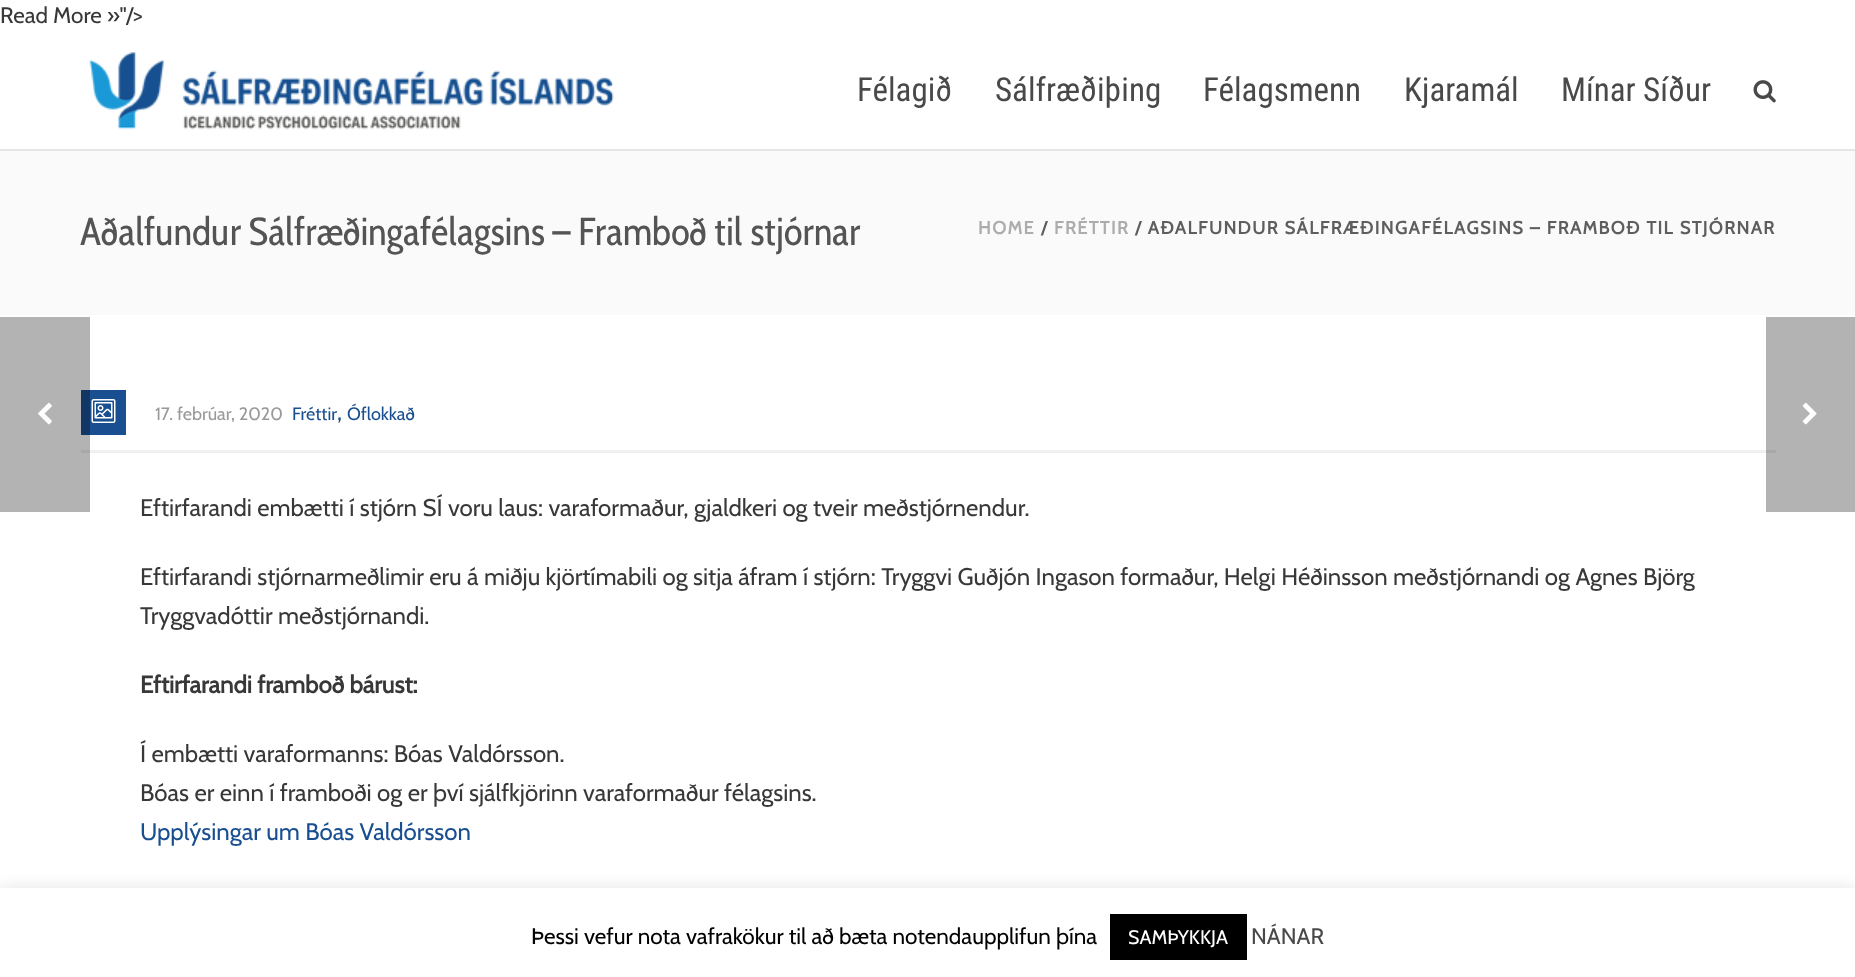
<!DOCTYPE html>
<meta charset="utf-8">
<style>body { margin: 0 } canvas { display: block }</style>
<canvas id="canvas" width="1855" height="977"></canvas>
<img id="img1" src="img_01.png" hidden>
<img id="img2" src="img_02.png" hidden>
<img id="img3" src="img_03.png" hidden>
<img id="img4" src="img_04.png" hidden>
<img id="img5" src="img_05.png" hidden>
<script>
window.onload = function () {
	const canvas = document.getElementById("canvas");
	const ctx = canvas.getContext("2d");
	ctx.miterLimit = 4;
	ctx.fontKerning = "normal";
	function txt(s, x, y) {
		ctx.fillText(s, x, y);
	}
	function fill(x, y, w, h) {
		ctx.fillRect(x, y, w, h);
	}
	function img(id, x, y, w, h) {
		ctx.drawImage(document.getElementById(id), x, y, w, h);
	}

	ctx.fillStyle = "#FFFFFF";
	fill(0, 0, 1855, 977);
	ctx.fillStyle = "#B3B3B3";
	fill(1766, 317, 89, 195);
	fill(0, 317, 90, 195);
	img("img1", 38, 402, 14, 23);
	ctx.fillStyle = "#E6E6E6";
	fill(0, 149, 1855, 2);
	img("img2", 89, 52, 525, 78);
	img("img3", 1753, 80, 23, 23);
	ctx.fillStyle = "#FAFAFA";
	fill(0, 151, 1855, 164);
	ctx.fillStyle = "#194F90";
	fill(90, 390, 36, 45);
	ctx.fillStyle = "#123765";
	fill(81, 390, 9, 45);
	img("img4", 91, 399, 25, 24);
	ctx.fillStyle = "#F0F0F0";
	fill(90, 450, 1676, 3);
	ctx.fillStyle = "#A8A8A8";
	fill(1766, 450, 10, 3);
	fill(81, 450, 9, 3);
	img("img5", 1802, 402, 15, 23);
	ctx.fillStyle = "rgba(172, 171, 171, 0.3)";
	ctx.filter = "blur(7.5px)";
	ctx.beginPath();
	ctx.rect(0, 887, 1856, 90);
	ctx.fill();
	ctx.filter = "none";
	ctx.fillStyle = "#FFFFFF";
	fill(0, 888, 1855, 89);
	ctx.fillStyle = "#000000";
	fill(1110, 914, 137, 46);
	ctx.font = "22.5px Cabin";
	ctx.fillStyle = "#383838";
	txt("Read More »\"/>", 0, 23);
	ctx.font = "33px Roboto Condensed";
	ctx.fillStyle = "#494949";
	txt("Félagið", 857, 101);
	txt("Sálfræðiþing", 995, 101);
	txt("Félagsmenn", 1203, 101);
	txt("Kjaramál", 1404, 101);
	txt("Mínar Síður", 1561, 101);
	ctx.font = "39px Cabin Condensed";
	ctx.fillStyle = "#545454";
	txt("Aðalfundur Sálfræðingafélagsins – Framboð til stjórnar", 80, 245);
	ctx.letterSpacing = "1.5px";
	ctx.font = "bold 18px Cabin";
	ctx.fillStyle = "#ACACAC";
	txt("HOME", 978, 234);
	ctx.fillStyle = "#5E5E5E";
	txt("/", 1041, 234);
	ctx.fillStyle = "#ACACAC";
	txt("FRÉTTIR", 1054, 234);
	ctx.fillStyle = "#5E5E5E";
	txt("/ AÐALFUNDUR SÁLFRÆÐINGAFÉLAGSINS – FRAMBOÐ TIL STJÓRNAR", 1135, 234);
	ctx.letterSpacing = "0px";
	ctx.font = "18px Cabin";
	ctx.fillStyle = "#999999";
	txt("17. febrúar, 2020", 155, 420);
	ctx.fillStyle = "#194F90";
	txt("Fréttir", 292, 420);
	ctx.font = "22.5px Cabin";
	txt(",", 337, 420);
	ctx.font = "18px Cabin";
	txt("Óflokkað", 347, 420);
	ctx.font = "24px Cabin";
	ctx.fillStyle = "#383838";
	txt("Eftirfarandi embætti í stjórn SÍ voru laus: varaformaður, gjaldkeri og tveir meðstjórnendur.", 140, 516);
	txt("Eftirfarandi stjórnarmeðlimir eru á miðju kjörtímabili og sitja áfram í stjórn: Tryggvi Guðjón Ingason formaður, Helgi Héðinsson meðstjórnandi og Agnes Björg", 140, 585);
	txt("Tryggvadóttir meðstjórnandi.", 140, 624);
	ctx.font = "bold 24px Cabin";
	txt("Eftirfarandi framboð bárust:", 140, 693);
	ctx.font = "24px Cabin";
	txt("Í embætti varaformanns: Bóas Valdórsson.", 140, 762);
	txt("Bóas er einn í framboði og er því sjálfkjörinn varaformaður félagsins.", 140, 801);
	ctx.fillStyle = "#194F90";
	txt("Upplýsingar um Bóas Valdórsson", 140, 840);
	ctx.font = "22.5px Cabin";
	ctx.fillStyle = "#000000";
	txt("Þessi vefur nota vafrakökur til að bæta notendaupplifun þína", 531, 944);
	ctx.font = "19.5px Cabin";
	ctx.fillStyle = "#FFFFFF";
	txt("SAMÞYKKJA", 1128, 944);
	ctx.font = "22.5px Cabin";
	ctx.fillStyle = "#494949";
	txt("NÁNAR", 1251, 944);
};
</script>
